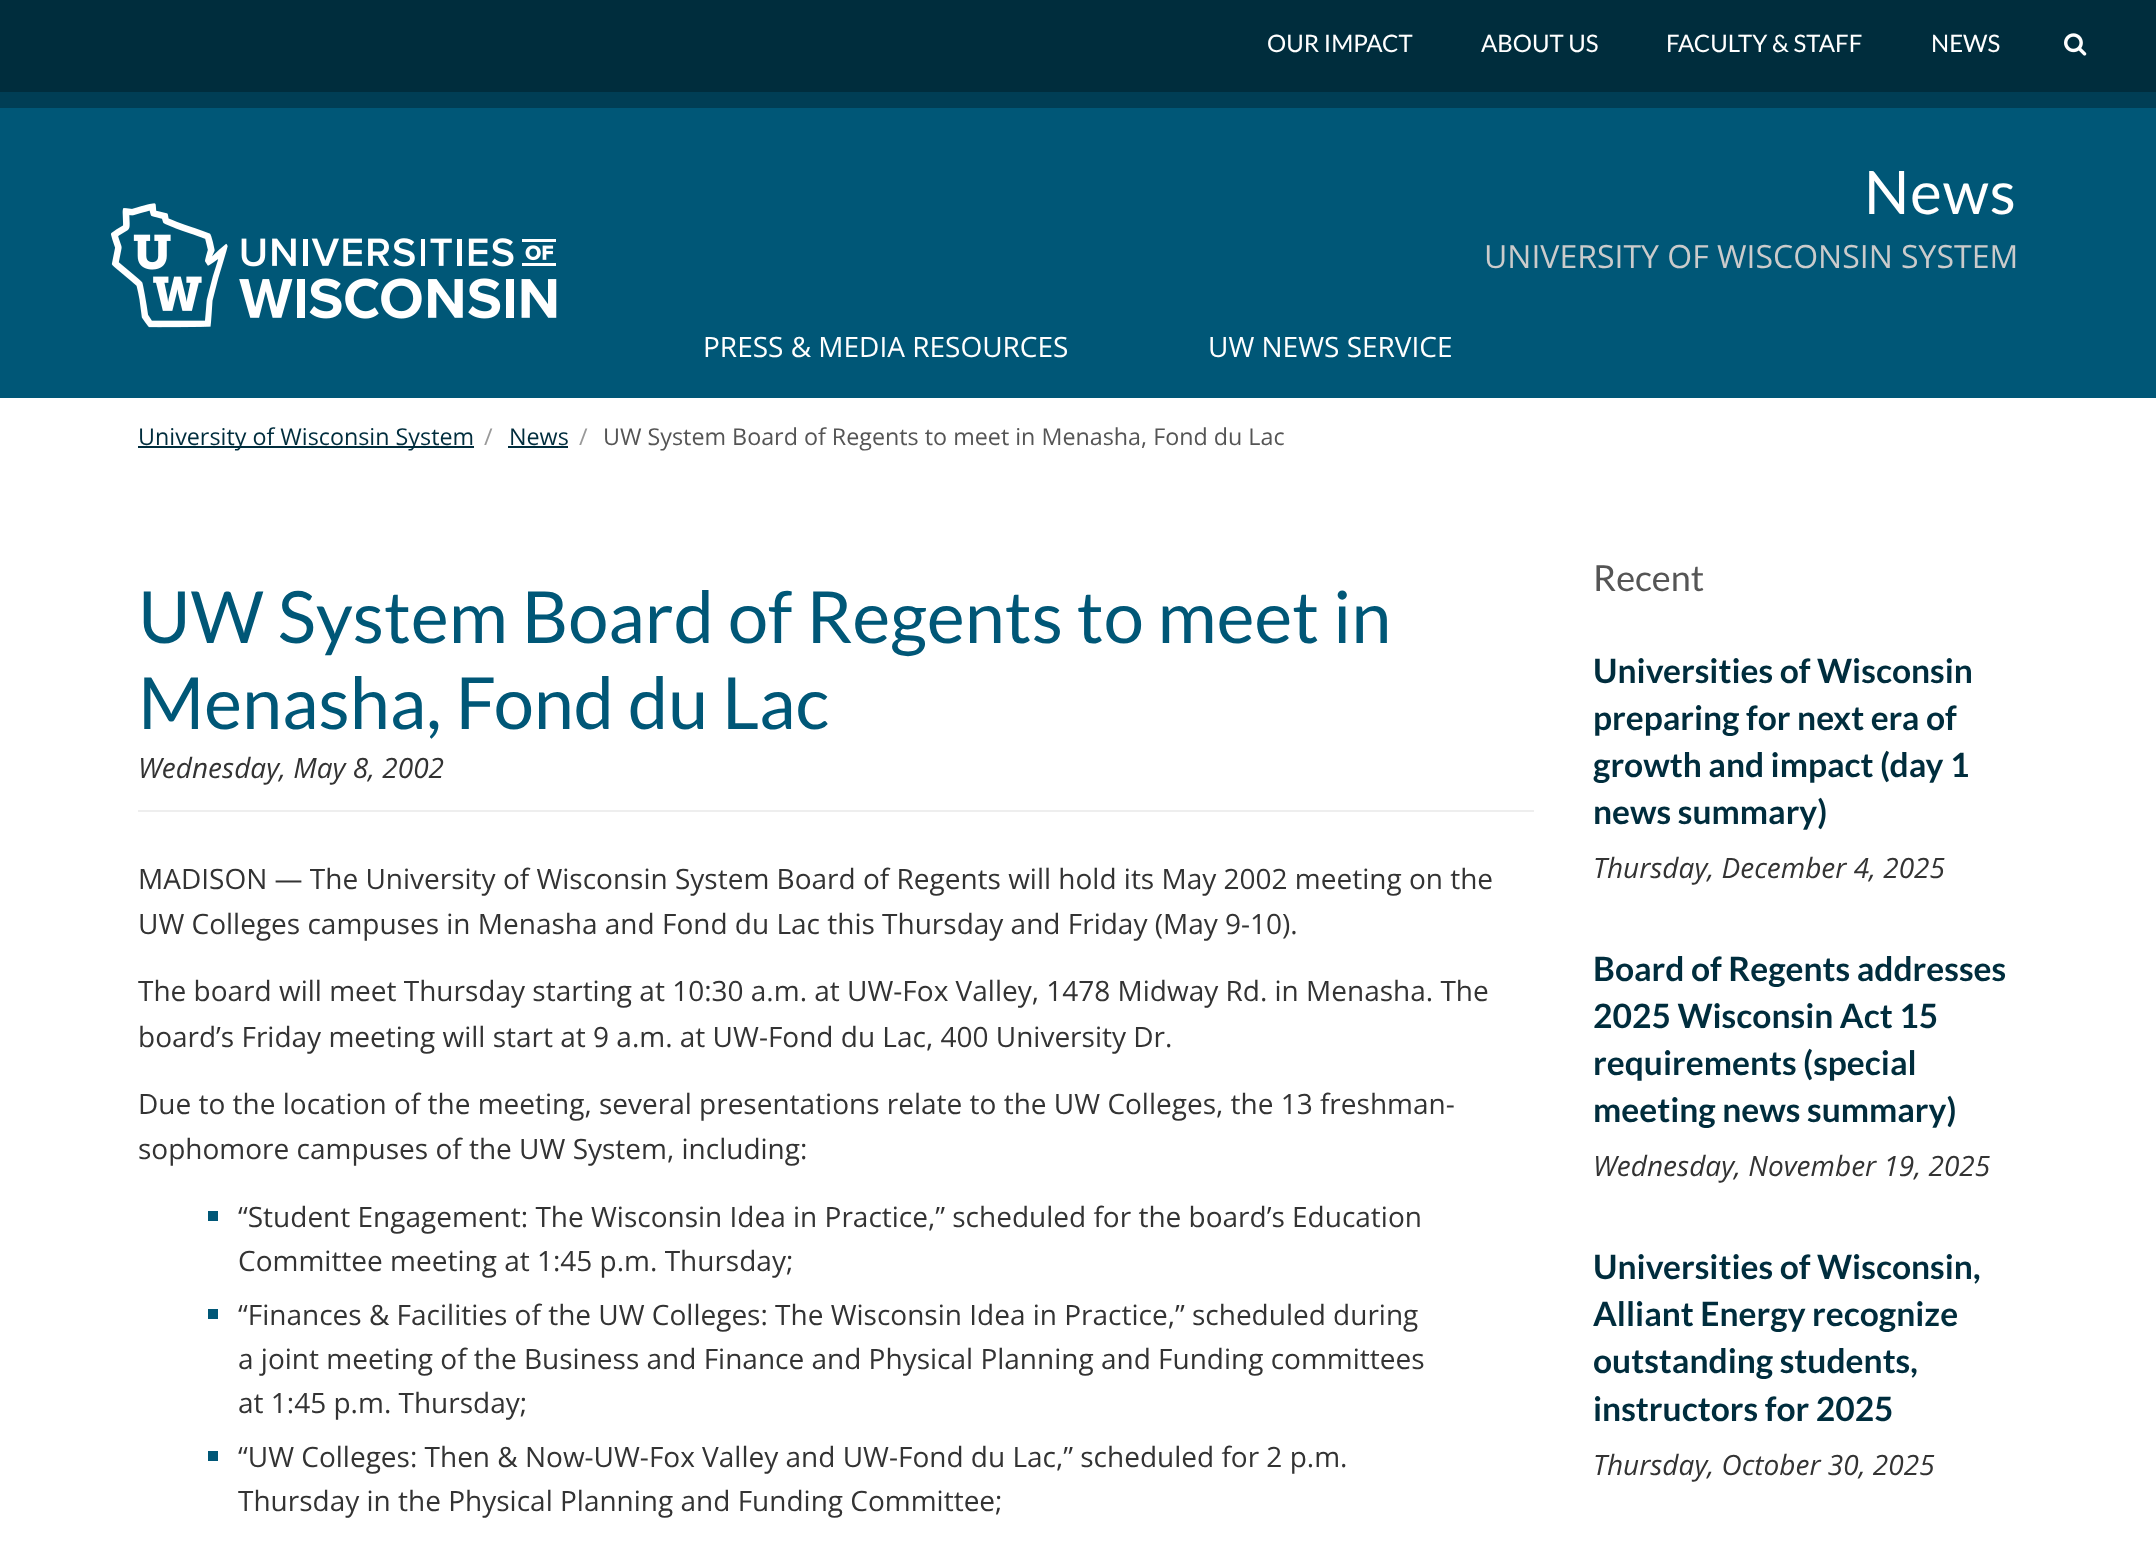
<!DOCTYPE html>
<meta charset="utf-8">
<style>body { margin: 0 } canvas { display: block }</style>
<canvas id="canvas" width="2156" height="1548"></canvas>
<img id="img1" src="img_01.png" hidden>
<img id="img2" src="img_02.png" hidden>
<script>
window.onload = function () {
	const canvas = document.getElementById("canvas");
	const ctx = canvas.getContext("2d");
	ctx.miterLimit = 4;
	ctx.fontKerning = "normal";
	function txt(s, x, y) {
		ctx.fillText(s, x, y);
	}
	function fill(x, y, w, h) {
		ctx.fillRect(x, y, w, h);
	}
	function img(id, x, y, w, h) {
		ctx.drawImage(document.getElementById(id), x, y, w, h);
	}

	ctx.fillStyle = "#FFFFFF";
	fill(0, 0, 2156, 1548);
	ctx.fillStyle = "#002D3D";
	fill(0, 0, 2156, 92);
	ctx.fillStyle = "#003E55";
	fill(0, 92, 2156, 16);
	img("img1", 2064, 33, 23, 23);
	ctx.fillStyle = "#005777";
	fill(0, 108, 2156, 290);
	img("img2", 111, 203, 446, 125);
	ctx.fillStyle = "#002D3D";
	fill(138, 446, 336, 2);
	fill(508, 446, 60, 2);
	ctx.fillStyle = "#EEEEEE";
	fill(138, 810, 1396, 2);
	ctx.fillStyle = "#005777";
	fill(208, 1211, 10, 10);
	fill(208, 1309, 10, 10);
	fill(208, 1451, 10, 10);
	ctx.font = "24px Lato";
	ctx.fillStyle = "#FFFFFF";
	txt("OUR IMPACT", 1267, 52);
	txt("ABOUT US", 1481, 52);
	txt("FACULTY & STAFF", 1666, 52);
	txt("NEWS", 1931, 52);
	ctx.letterSpacing = "1px";
	ctx.font = "60px Lato";
	txt("News", 1864, 214);
	ctx.letterSpacing = "0px";
	ctx.font = "32px Open Sans";
	ctx.fillStyle = "#CBCBCB";
	txt("UNIVERSITY OF WISCONSIN SYSTEM", 1484, 268);
	ctx.font = "28px Open Sans";
	ctx.fillStyle = "#FFFFFF";
	txt("PRESS & MEDIA RESOURCES", 703, 357);
	txt("UW NEWS SERVICE", 1208, 357);
	ctx.font = "23.3px Open Sans";
	ctx.fillStyle = "#002D3D";
	txt("University of Wisconsin System", 138, 445);
	ctx.fillStyle = "#999999";
	txt("/", 484, 445);
	ctx.fillStyle = "#002D3D";
	txt("News", 509, 445);
	ctx.fillStyle = "#999999";
	txt("/", 579, 445);
	ctx.fillStyle = "#555555";
	txt("UW System Board of Regents to meet in Menasha, Fond du Lac", 603, 445);
	ctx.font = "72px Lato";
	ctx.fillStyle = "#005777";
	txt("UW System Board of Regents to meet in", 138, 643);
	txt("Menasha, Fond du Lac", 138, 729);
	ctx.font = "italic 28px Open Sans";
	ctx.fillStyle = "#333333";
	txt("Wednesday, May 8, 2002", 138, 778);
	ctx.font = "28px Open Sans";
	txt("MADISON — The University of Wisconsin System Board of Regents will hold its May 2002 meeting on the", 138, 889);
	txt("UW Colleges campuses in Menasha and Fond du Lac this Thursday and Friday (May 9-10).", 138, 934);
	txt("The board will meet Thursday starting at 10:30 a.m. at UW-Fox Valley, 1478 Midway Rd. in Menasha. The", 138, 1001);
	txt("board’s Friday meeting will start at 9 a.m. at UW-Fond du Lac, 400 University Dr.", 138, 1047);
	txt("Due to the location of the meeting, several presentations relate to the UW Colleges, the 13 freshman-", 138, 1114);
	txt("sophomore campuses of the UW System, including:", 138, 1159);
	txt("“Student Engagement: The Wisconsin Idea in Practice,” scheduled for the board’s Education", 238, 1227);
	txt("Committee meeting at 1:45 p.m. Thursday;", 238, 1271);
	txt("“Finances & Facilities of the UW Colleges: The Wisconsin Idea in Practice,” scheduled during", 238, 1325);
	txt("a joint meeting of the Business and Finance and Physical Planning and Funding committees", 238, 1369);
	txt("at 1:45 p.m. Thursday;", 238, 1413);
	txt("“UW Colleges: Then & Now-UW-Fox Valley and UW-Fond du Lac,” scheduled for 2 p.m.", 238, 1467);
	txt("Thursday in the Physical Planning and Funding Committee;", 238, 1511);
	ctx.font = "36px Lato";
	ctx.fillStyle = "#555555";
	txt("Recent", 1593, 591);
	ctx.font = "bold 33.6px Lato";
	ctx.fillStyle = "#002D3D";
	txt("Universities of Wisconsin", 1593, 683);
	txt("preparing for next era of", 1593, 730);
	txt("growth and impact (day 1", 1593, 777);
	txt("news summary)", 1593, 824);
	ctx.font = "italic 28px Open Sans";
	ctx.fillStyle = "#333333";
	txt("Thursday, December 4, 2025", 1593, 878);
	ctx.font = "bold 33.6px Lato";
	ctx.fillStyle = "#002D3D";
	txt("Board of Regents addresses", 1593, 981);
	txt("2025 Wisconsin Act 15", 1593, 1028);
	txt("requirements (special", 1593, 1075);
	txt("meeting news summary)", 1593, 1122);
	ctx.font = "italic 28px Open Sans";
	ctx.fillStyle = "#333333";
	txt("Wednesday, November 19, 2025", 1593, 1176);
	ctx.font = "bold 33.6px Lato";
	ctx.fillStyle = "#002D3D";
	txt("Universities of Wisconsin,", 1593, 1279);
	txt("Alliant Energy recognize", 1593, 1326);
	txt("outstanding students,", 1593, 1373);
	txt("instructors for 2025", 1593, 1421);
	ctx.font = "italic 28px Open Sans";
	ctx.fillStyle = "#333333";
	txt("Thursday, October 30, 2025", 1593, 1475);
};
</script>
